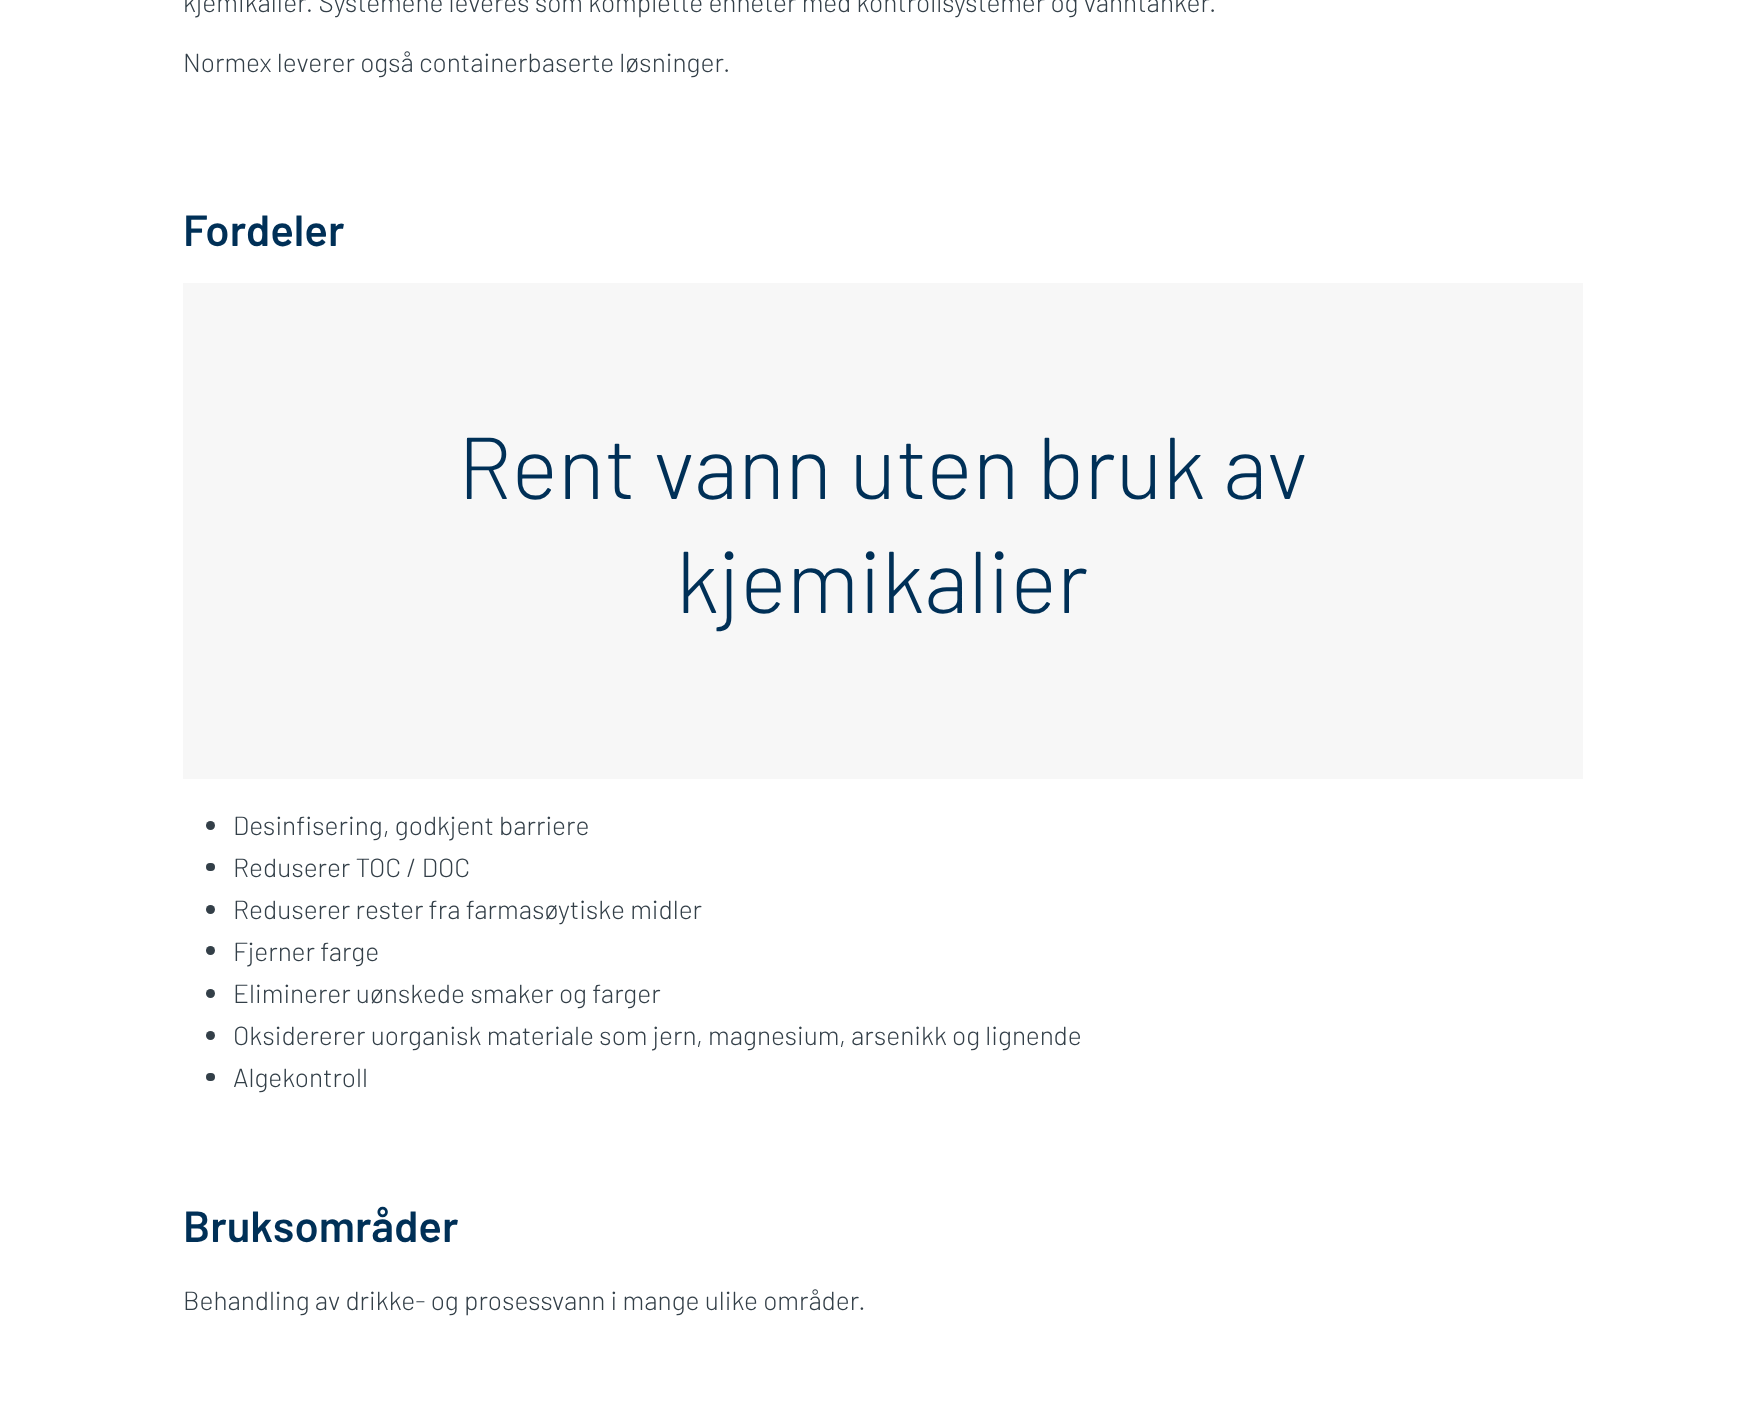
<!DOCTYPE html>
<meta charset="utf-8">
<style>body { margin: 0 } canvas { display: block }</style>
<canvas id="canvas" width="1764" height="1418"></canvas>
<script>
window.onload = function () {
	const canvas = document.getElementById("canvas");
	const ctx = canvas.getContext("2d");
	ctx.miterLimit = 4;
	ctx.fontKerning = "normal";
	function txt(s, x, y) {
		ctx.fillText(s, x, y);
	}
	function fill(x, y, w, h) {
		ctx.fillRect(x, y, w, h);
	}
	function round(x, y, w, h, r) {
		ctx.beginPath();
		ctx.roundRect(x, y, w, h, r);
		ctx.fill();
	}

	ctx.fillStyle = "#FFFFFF";
	fill(0, 0, 1764, 1418);
	ctx.fillStyle = "#F7F7F7";
	fill(183, 283, 1400, 496);
	ctx.fillStyle = "#333F48";
	ctx.beginPath();
	ctx.arc(210.5, 825.5, 4.5, 0, Math.PI * 2);
	ctx.fill();
	round(206, 863, 9, 8, 4);
	ctx.beginPath();
	ctx.arc(210.5, 909.5, 4.5, 0, Math.PI * 2);
	ctx.fill();
	ctx.beginPath();
	ctx.arc(210.5, 950.5, 4.5, 0, Math.PI * 2);
	ctx.fill();
	ctx.beginPath();
	ctx.arc(210.5, 993.5, 4.5, 0, Math.PI * 2);
	ctx.fill();
	ctx.beginPath();
	ctx.arc(210.5, 1035.5, 4.5, 0, Math.PI * 2);
	ctx.fill();
	round(206, 1073, 9, 8, 4);
	ctx.font = "300 26.25px Barlow";
	txt("kjemikalier. Systemene leveres som komplette enheter med kontrollsystemer og vanntanker.", 183, 12);
	txt("Normex leverer også containerbaserte løsninger.", 183, 72);
	ctx.font = "600 43.75px Barlow";
	ctx.fillStyle = "#003057";
	txt("Fordeler", 183, 246);
	ctx.font = "300 87.5px Barlow";
	txt("Rent vann uten bruk av", 458, 499);
	txt("kjemikalier", 676, 613);
	ctx.font = "300 26.25px Barlow";
	ctx.fillStyle = "#333F48";
	txt("Desinfisering, godkjent barriere", 233, 835);
	txt("Reduserer TOC / DOC", 233, 877);
	txt("Reduserer rester fra farmasøytiske midler", 233, 919);
	txt("Fjerner farge", 233, 961);
	txt("Eliminerer uønskede smaker og farger", 233, 1003);
	txt("Oksidererer uorganisk materiale som jern, magnesium, arsenikk og lignende", 233, 1045);
	txt("Algekontroll", 233, 1087);
	ctx.font = "600 43.75px Barlow";
	ctx.fillStyle = "#003057";
	txt("Bruksområder", 183, 1242);
	ctx.font = "300 26.25px Barlow";
	ctx.fillStyle = "#333F48";
	txt("Behandling av drikke- og prosessvann i mange ulike områder.", 183, 1310);
};
</script>
